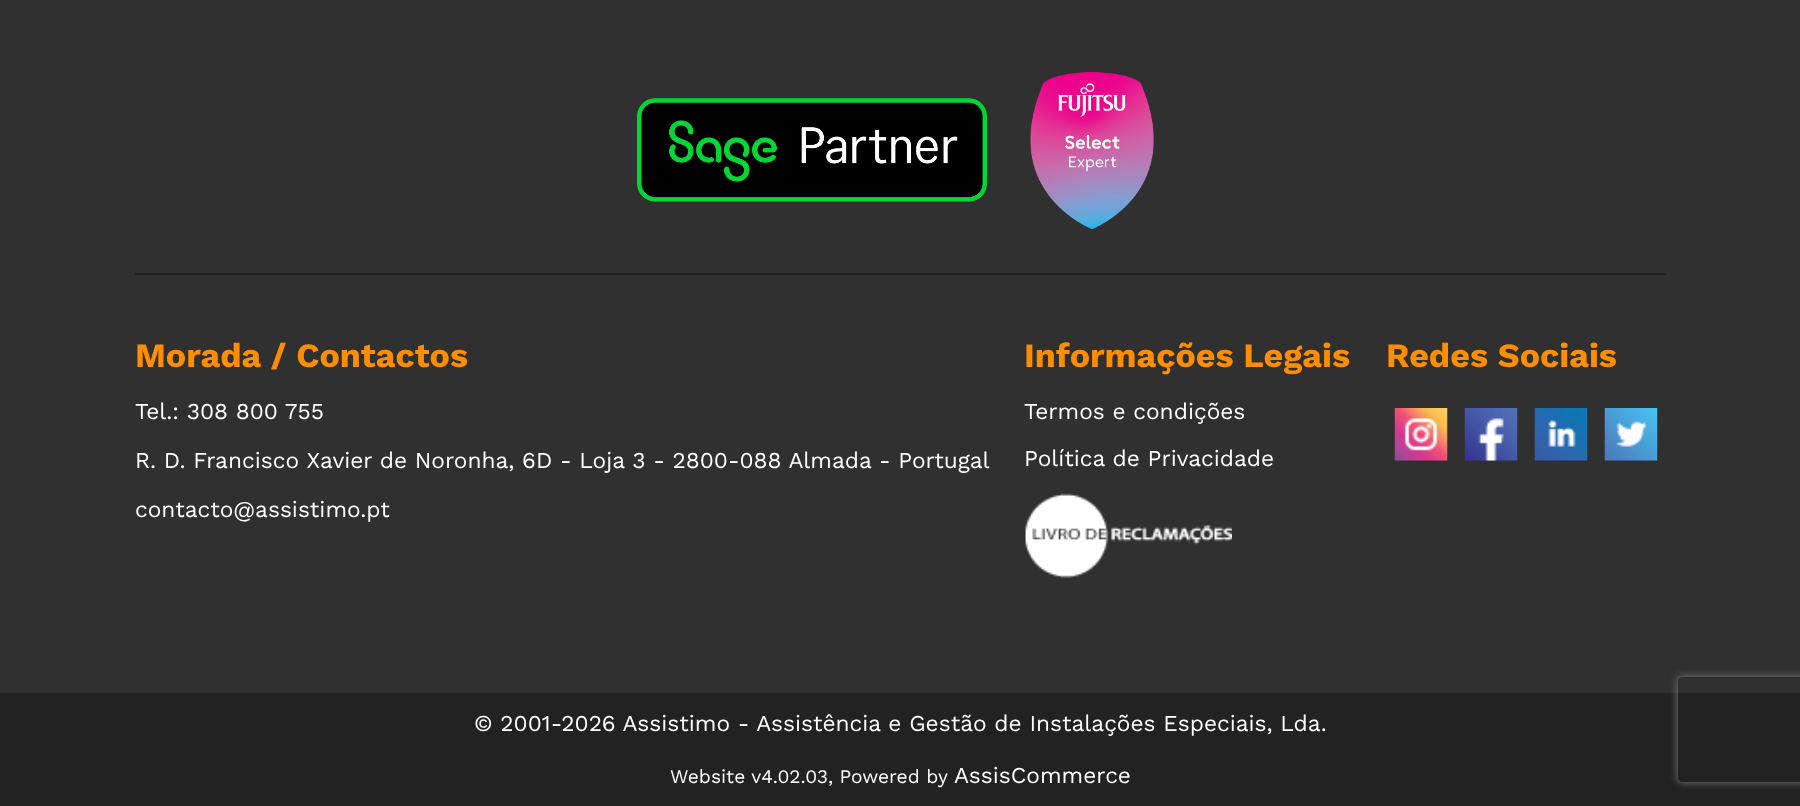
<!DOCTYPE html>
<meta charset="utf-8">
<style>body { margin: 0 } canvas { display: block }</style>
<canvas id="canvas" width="1800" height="806"></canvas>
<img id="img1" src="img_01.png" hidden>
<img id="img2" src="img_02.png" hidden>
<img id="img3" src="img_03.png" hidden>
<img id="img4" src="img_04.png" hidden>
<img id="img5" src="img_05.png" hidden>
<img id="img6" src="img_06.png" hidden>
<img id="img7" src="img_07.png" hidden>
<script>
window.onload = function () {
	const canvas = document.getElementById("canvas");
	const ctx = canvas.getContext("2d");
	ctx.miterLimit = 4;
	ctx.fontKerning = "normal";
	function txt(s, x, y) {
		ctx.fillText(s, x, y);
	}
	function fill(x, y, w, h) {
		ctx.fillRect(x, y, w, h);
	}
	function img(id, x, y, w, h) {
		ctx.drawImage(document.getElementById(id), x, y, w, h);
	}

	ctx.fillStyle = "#303030";
	fill(0, 0, 1800, 806);
	ctx.fillStyle = "#222222";
	fill(135, 273, 1531, 2);
	img("img1", 637, 98, 350, 104);
	img("img2", 1030, 72, 124, 157);
	img("img3", 1025, 493, 207, 85);
	img("img4", 1394, 408, 54, 53);
	img("img5", 1464, 408, 54, 53);
	img("img6", 1534, 408, 54, 53);
	img("img7", 1604, 408, 54, 53);
	fill(0, 693, 1800, 113);
	ctx.save();
	ctx.beginPath();
	ctx.moveTo(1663, 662);
	ctx.lineTo(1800, 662);
	ctx.lineTo(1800, 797);
	ctx.lineTo(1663, 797);
	ctx.closePath();
	ctx.moveTo(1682, 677);
	ctx.lineTo(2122, 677);
	ctx.bezierCurveTo(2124, 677, 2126, 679, 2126, 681);
	ctx.lineTo(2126, 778);
	ctx.bezierCurveTo(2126, 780, 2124, 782, 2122, 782);
	ctx.lineTo(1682, 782);
	ctx.bezierCurveTo(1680, 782, 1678, 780, 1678, 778);
	ctx.lineTo(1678, 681);
	ctx.bezierCurveTo(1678, 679, 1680, 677, 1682, 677);
	ctx.closePath();
	ctx.clip("evenodd");
	ctx.fillStyle = "#808080";
	ctx.filter = "blur(4.5px)";
	ctx.beginPath();
	ctx.roundRect(1678, 677, 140, 105, 4);
	ctx.fill();
	ctx.filter = "none";
	ctx.restore();
	ctx.font = "bold 34px Work Sans";
	ctx.fillStyle = "#FF8D00";
	txt("Morada / Contactos", 135, 367);
	ctx.font = "22.7px Work Sans";
	ctx.fillStyle = "#FFFFFF";
	txt("Tel.: 308 800 755", 135, 419);
	txt("R. D. Francisco Xavier de Noronha, 6D - Loja 3 - 2800-088 Almada - Portugal", 135, 468);
	txt("contacto@assistimo.pt", 135, 517);
	ctx.font = "bold 34px Work Sans";
	ctx.fillStyle = "#FF8D00";
	txt("Informações Legais", 1024, 367);
	ctx.font = "22.7px Work Sans";
	ctx.fillStyle = "#FFFFFF";
	txt("Termos e condições", 1024, 419);
	txt("Política de Privacidade", 1024, 466);
	ctx.font = "bold 34px Work Sans";
	ctx.fillStyle = "#FF8D00";
	txt("Redes Sociais", 1386, 367);
	ctx.font = "22.7px Work Sans";
	ctx.fillStyle = "#FFFFFF";
	txt("© 2001-2026 Assistimo - Assistência e Gestão de Instalações Especiais, Lda.", 474, 731);
	ctx.font = "19.2px Work Sans";
	txt("Website v4.02.03, Powered by", 670, 783);
	ctx.font = "22.7px Work Sans";
	txt("AssisCommerce", 954, 783);
};
</script>
